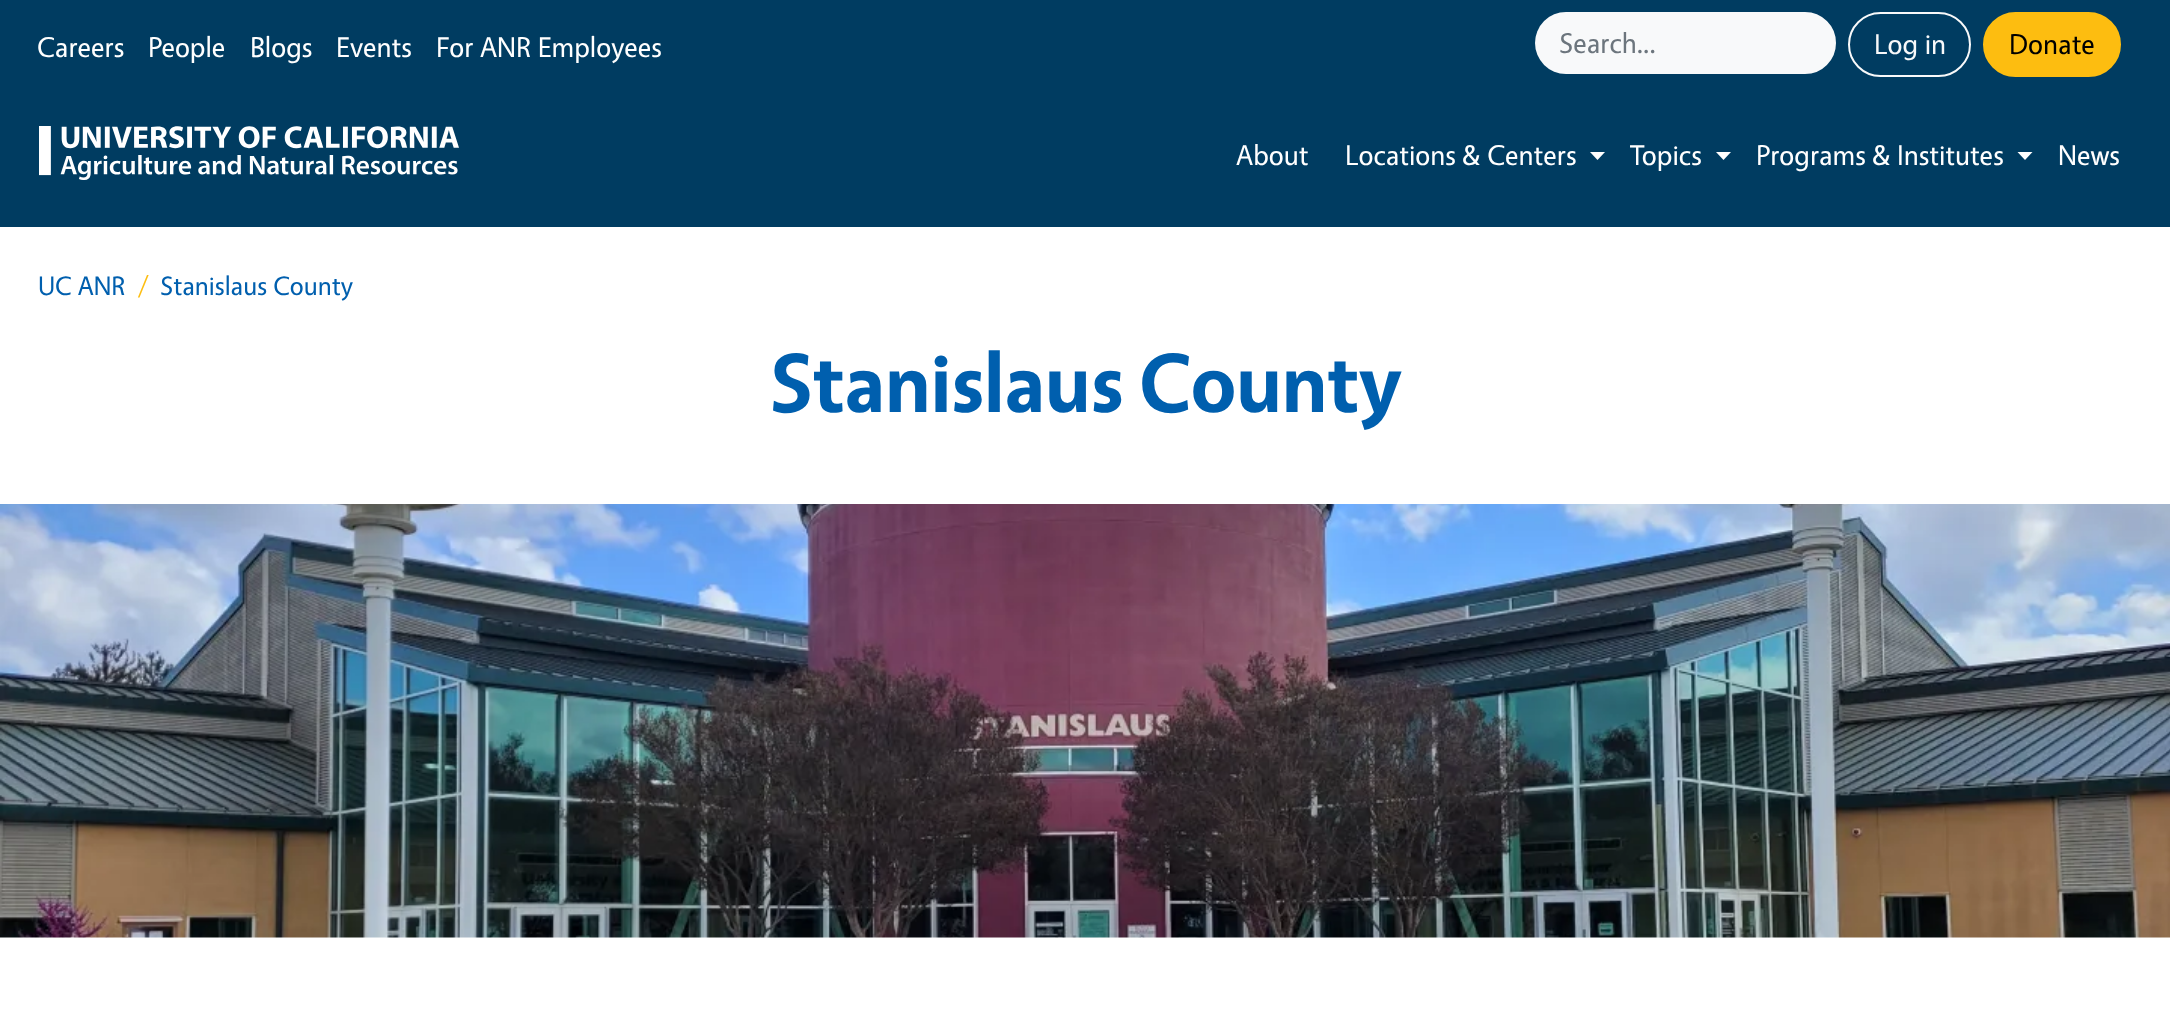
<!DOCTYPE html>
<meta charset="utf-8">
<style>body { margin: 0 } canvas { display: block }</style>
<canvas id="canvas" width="2170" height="1013"></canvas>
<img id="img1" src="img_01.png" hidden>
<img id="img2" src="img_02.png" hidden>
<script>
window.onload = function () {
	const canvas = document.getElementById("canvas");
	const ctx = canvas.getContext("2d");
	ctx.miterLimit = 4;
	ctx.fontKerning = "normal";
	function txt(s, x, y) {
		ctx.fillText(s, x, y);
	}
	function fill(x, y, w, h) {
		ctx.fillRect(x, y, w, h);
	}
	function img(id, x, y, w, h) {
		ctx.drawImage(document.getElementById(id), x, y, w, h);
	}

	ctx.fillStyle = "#FFFFFF";
	fill(0, 0, 2170, 1013);
	ctx.fillStyle = "#003C61";
	fill(0, 0, 2170, 227);
	ctx.fillStyle = "#F8F9FA";
	ctx.beginPath();
	ctx.roundRect(1535, 12, 264, 62, [31, 0, 0, 31]);
	ctx.fill();
	ctx.beginPath();
	ctx.roundRect(1798, 13, 37, 60, [0, 30, 30, 0]);
	ctx.fill();
	ctx.strokeStyle = "#F8F9FA";
	ctx.lineWidth = 2;
	ctx.stroke();
	ctx.beginPath();
	ctx.roundRect(1849, 13, 121, 63, 31.5);
	ctx.stroke();
	ctx.fillStyle = "#FDBD10";
	ctx.beginPath();
	ctx.roundRect(1984, 13, 136, 63, 31.5);
	ctx.fill();
	ctx.strokeStyle = "#FDBD10";
	ctx.stroke();
	img("img1", 39, 126, 420, 54);
	ctx.fillStyle = "#FFFFFF";
	ctx.beginPath();
	ctx.moveTo(1590, 152);
	ctx.lineTo(1605, 152);
	ctx.lineTo(1597.5, 160);
	ctx.closePath();
	ctx.fill();
	ctx.beginPath();
	ctx.moveTo(1716, 152);
	ctx.lineTo(1731, 152);
	ctx.lineTo(1723.5, 160);
	ctx.closePath();
	ctx.fill();
	ctx.beginPath();
	ctx.moveTo(2017.5, 152);
	ctx.lineTo(2032.5, 152);
	ctx.lineTo(2025, 160);
	ctx.closePath();
	ctx.fill();
	img("img2", 0, 504, 2170, 434);
	ctx.font = "28.75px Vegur";
	txt("Careers", 37, 57);
	txt("People", 148, 57);
	txt("Blogs", 250, 57);
	txt("Events", 336, 57);
	txt("For ANR Employees", 436, 57);
	ctx.fillStyle = "#6C757D";
	txt("Search...", 1559, 53);
	ctx.fillStyle = "#F8F9FA";
	txt("Log in", 1874, 54);
	ctx.fillStyle = "#000000";
	txt("Donate", 2009, 54);
	ctx.fillStyle = "#FFFFFF";
	txt("About", 1236, 165);
	txt("Locations & Centers", 1345, 165);
	txt("Topics", 1630, 165);
	txt("Programs & Institutes", 1756, 165);
	txt("News", 2058, 165);
	ctx.font = "26.75px Vegur";
	ctx.fillStyle = "#005FAE";
	txt("UC ANR", 38, 295);
	ctx.fillStyle = "#FDBD10";
	txt("/", 138, 295);
	ctx.fillStyle = "#005FAE";
	txt("Stanislaus County", 160, 295);
	ctx.font = "bold 84px Vegur";
	txt("Stanislaus County", 770, 412);
};
</script>
